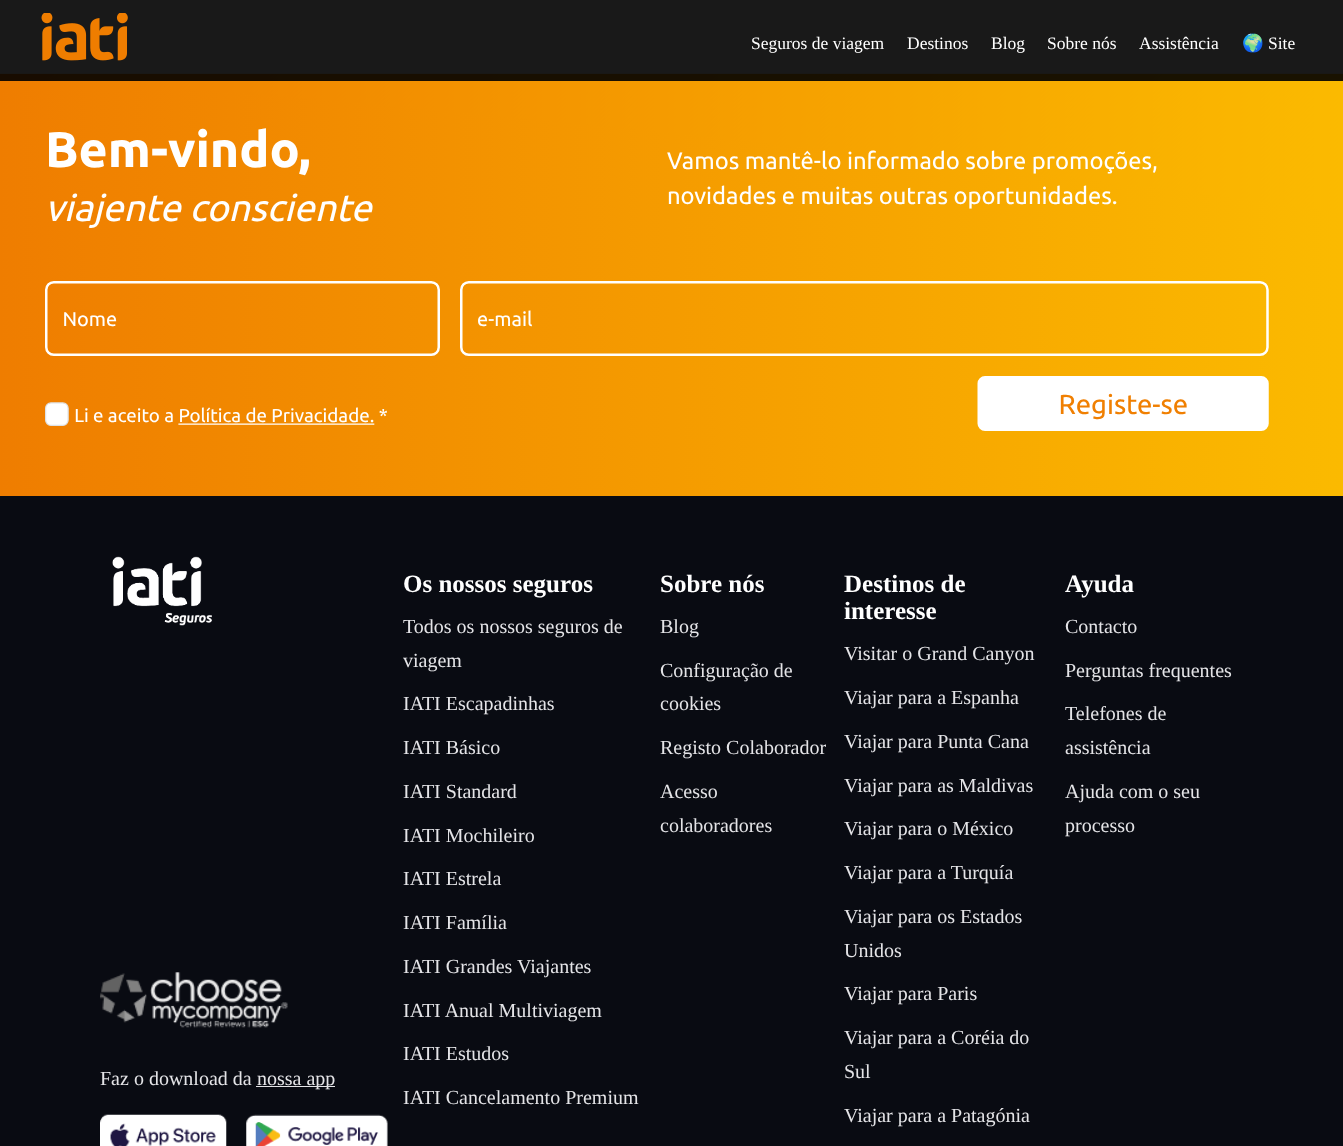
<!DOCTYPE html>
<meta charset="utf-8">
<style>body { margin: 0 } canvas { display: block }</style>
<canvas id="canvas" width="1343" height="1146"></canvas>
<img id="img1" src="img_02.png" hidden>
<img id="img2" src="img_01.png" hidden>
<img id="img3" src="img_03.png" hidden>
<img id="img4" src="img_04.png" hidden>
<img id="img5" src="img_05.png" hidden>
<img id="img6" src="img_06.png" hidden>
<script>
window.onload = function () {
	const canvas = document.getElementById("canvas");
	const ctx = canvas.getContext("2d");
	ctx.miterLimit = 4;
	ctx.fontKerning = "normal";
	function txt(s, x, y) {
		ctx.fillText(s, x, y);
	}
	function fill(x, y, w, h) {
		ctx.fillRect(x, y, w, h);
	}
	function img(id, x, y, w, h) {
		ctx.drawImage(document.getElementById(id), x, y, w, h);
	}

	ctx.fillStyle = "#FFFFFF";
	fill(0, 0, 1343, 1146);
	img("img1", 0, 73, 1343, 423);
	ctx.fillStyle = "rgba(0, 0, 0, 0.9)";
	fill(0, 0, 1343, 81);
	img("img2", 41, 13, 87, 48);
	ctx.fillStyle = "#090B12";
	fill(0, 496, 1343, 650);
	img("img3", 112, 556, 100, 70);
	img("img4", 100, 972, 188, 56);
	ctx.fillStyle = "#E4E4E7";
	fill(256, 1086, 79, 1);
	img("img5", 100, 1114, 127, 32);
	img("img6", 246, 1114, 142, 32);
	ctx.font = "17.5px Liberation Serif";
	ctx.fillStyle = "#FFFFFF";
	txt("Seguros de viagem", 751, 49);
	txt("Destinos", 907, 49);
	txt("Blog", 991, 49);
	txt("Sobre nós", 1047, 49);
	txt("Assistência", 1139, 49);
	ctx.font = "17.5px Noto Color Emoji";
	txt("🌍", 1242, 49);
	ctx.font = "17.5px Liberation Serif";
	txt("Site", 1268, 49);
	ctx.font = "20px Liberation Serif";
	ctx.fillStyle = "#E4E4E7";
	txt("Faz o download da", 100, 1085);
	txt("nossa app", 257, 1085);
	ctx.font = "bold 25px Liberation Serif";
	ctx.fillStyle = "#FFFFFF";
	txt("Os nossos seguros", 403, 592);
	ctx.font = "20px Liberation Serif";
	ctx.fillStyle = "#E4E4E7";
	txt("Todos os nossos seguros de", 403, 633);
	txt("viagem", 403, 667);
	txt("IATI Escapadinhas", 403, 710);
	txt("IATI Básico", 403, 754);
	txt("IATI Standard", 403, 798);
	txt("IATI Mochileiro", 403, 842);
	txt("IATI Estrela", 403, 885);
	txt("IATI Família", 403, 929);
	txt("IATI Grandes Viajantes", 403, 973);
	txt("IATI Anual Multiviagem", 403, 1017);
	txt("IATI Estudos", 403, 1060);
	txt("IATI Cancelamento Premium", 403, 1104);
	ctx.font = "bold 25px Liberation Serif";
	ctx.fillStyle = "#FFFFFF";
	txt("Sobre nós", 660, 592);
	ctx.font = "20px Liberation Serif";
	ctx.fillStyle = "#E4E4E7";
	txt("Blog", 660, 633);
	txt("Configuração de", 660, 677);
	txt("cookies", 660, 710);
	txt("Registo Colaborador", 660, 754);
	txt("Acesso", 660, 798);
	txt("colaboradores", 660, 832);
	ctx.font = "bold 25px Liberation Serif";
	ctx.fillStyle = "#FFFFFF";
	txt("Destinos de", 844, 592);
	txt("interesse", 844, 619);
	ctx.font = "20px Liberation Serif";
	ctx.fillStyle = "#E4E4E7";
	txt("Visitar o Grand Canyon", 844, 660);
	txt("Viajar para a Espanha", 844, 704);
	txt("Viajar para Punta Cana", 844, 748);
	txt("Viajar para as Maldivas", 844, 792);
	txt("Viajar para o México", 844, 835);
	txt("Viajar para a Turquía", 844, 879);
	txt("Viajar para os Estados", 844, 923);
	txt("Unidos", 844, 957);
	txt("Viajar para Paris", 844, 1000);
	txt("Viajar para a Coréia do", 844, 1044);
	txt("Sul", 844, 1078);
	txt("Viajar para a Patagónia", 844, 1122);
	ctx.font = "bold 25px Liberation Serif";
	ctx.fillStyle = "#FFFFFF";
	txt("Ayuda", 1065, 592);
	ctx.font = "20px Liberation Serif";
	ctx.fillStyle = "#E4E4E7";
	txt("Contacto", 1065, 633);
	txt("Perguntas frequentes", 1065, 677);
	txt("Telefones de", 1065, 720);
	txt("assistência", 1065, 754);
	txt("Ajuda com o seu", 1065, 798);
	txt("processo", 1065, 832);
};
</script>
